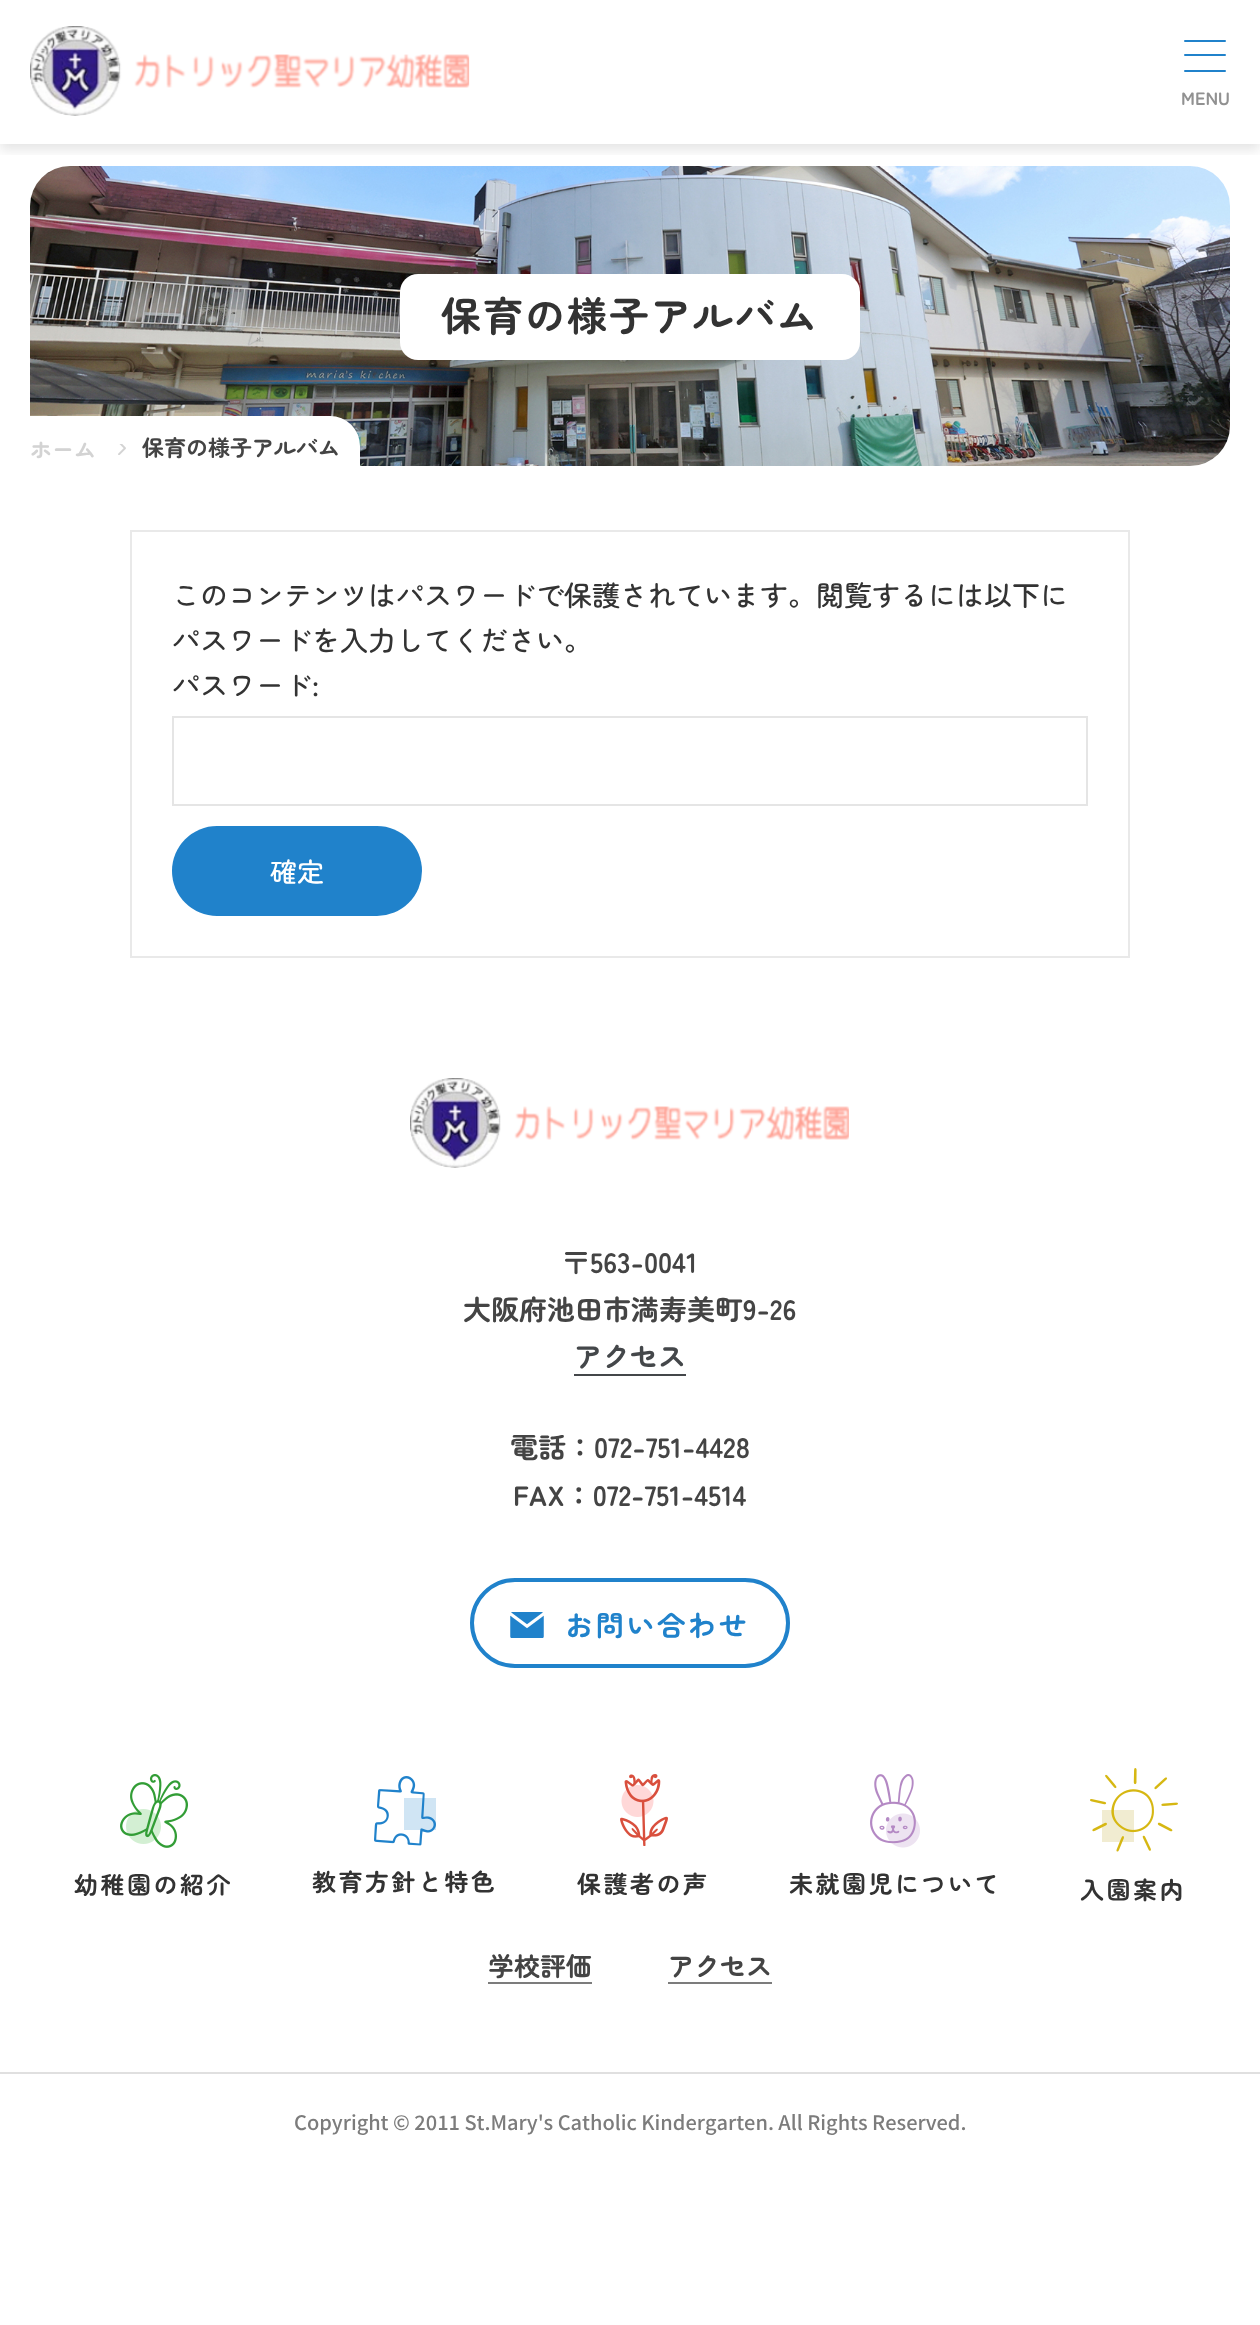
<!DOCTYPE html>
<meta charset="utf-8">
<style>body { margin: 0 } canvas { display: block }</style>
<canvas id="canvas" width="1260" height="2325"></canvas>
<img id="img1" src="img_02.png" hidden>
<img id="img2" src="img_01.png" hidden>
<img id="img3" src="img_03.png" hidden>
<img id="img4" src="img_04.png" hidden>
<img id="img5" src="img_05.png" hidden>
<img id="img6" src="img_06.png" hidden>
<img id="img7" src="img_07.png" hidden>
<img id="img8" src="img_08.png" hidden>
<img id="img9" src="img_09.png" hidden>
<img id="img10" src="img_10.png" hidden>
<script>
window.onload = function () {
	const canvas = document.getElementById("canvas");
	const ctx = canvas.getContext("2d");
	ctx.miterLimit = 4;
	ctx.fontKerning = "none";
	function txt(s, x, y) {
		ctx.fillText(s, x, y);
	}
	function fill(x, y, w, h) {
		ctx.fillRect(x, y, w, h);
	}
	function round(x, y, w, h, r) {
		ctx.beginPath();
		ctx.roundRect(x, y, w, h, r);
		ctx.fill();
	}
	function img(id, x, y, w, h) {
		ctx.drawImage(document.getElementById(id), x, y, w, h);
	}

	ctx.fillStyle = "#FFFFFF";
	fill(0, 0, 1260, 2325);
	img("img1", 30, 166, 1200, 300);
	ctx.save();
	ctx.beginPath();
	ctx.rect(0, 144, 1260, 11);
	ctx.clip();
	ctx.fillStyle = "rgba(0, 0, 0, 0.1)";
	ctx.filter = "blur(6px)";
	ctx.beginPath();
	ctx.rect(0, 6, 1260, 144);
	ctx.fill();
	ctx.filter = "none";
	ctx.restore();
	img("img2", 30, 26, 440, 90);
	ctx.fillStyle = "#2082CB";
	round(1184, 40, 42, 2, 1);
	round(1184, 54, 42, 2, 1);
	round(1184, 70, 42, 2, 1);
	ctx.fillStyle = "#FFFFFF";
	round(400, 274, 460, 86, 18);
	ctx.beginPath();
	ctx.roundRect(30, 416, 330, 50, [0, 30, 0, 0]);
	ctx.fill();
	img("img3", 118, 444, 8, 11);
	ctx.strokeStyle = "#E9E9E9";
	ctx.lineWidth = 2;
	ctx.strokeRect(131, 531, 998, 426);
	ctx.strokeStyle = "#E5E5E5";
	ctx.strokeRect(173, 717, 914, 88);
	ctx.fillStyle = "#2082CB";
	round(172, 826, 250, 90, 45);
	img("img4", 410, 1078, 439, 90);
	ctx.fillStyle = "#44474A";
	fill(574, 1374, 112, 2);
	ctx.beginPath();
	ctx.roundRect(472, 1580, 316, 86, 43);
	ctx.strokeStyle = "#2082CB";
	ctx.lineWidth = 4;
	ctx.stroke();
	img("img5", 510, 1612, 34, 26);
	img("img6", 120, 1774, 68, 74);
	img("img7", 374, 1776, 62, 70);
	img("img8", 620, 1774, 48, 72);
	img("img9", 870, 1774, 50, 74);
	img("img10", 1090, 1768, 88, 84);
	ctx.fillStyle = "#7C7C7C";
	fill(488, 1982, 104, 2);
	fill(668, 1982, 104, 2);
	ctx.fillStyle = "#E0E0E0";
	fill(0, 2072, 1260, 2);
	ctx.font = "bold 18px Zen Maru Gothic";
	ctx.fillStyle = "#919191";
	txt("MENU", 1181, 105);
	ctx.letterSpacing = "2px";
	ctx.font = "bold 40px Zen Maru Gothic";
	ctx.fillStyle = "#333333";
	txt("保育の様子アルバム", 441, 331);
	ctx.letterSpacing = "0px";
	ctx.font = "bold 22px Zen Maru Gothic";
	ctx.fillStyle = "#D3D3D3";
	txt("ホーム", 30, 458);
	ctx.fillStyle = "#444444";
	txt("保育の様子アルバム", 142, 456);
	ctx.font = "500 28px Zen Maru Gothic";
	ctx.fillStyle = "#333333";
	txt("このコンテンツはパスワードで保護されています。閲覧するには以下に", 172, 606);
	txt("パスワードを入力してください。", 172, 651);
	txt("パスワード:", 172, 696);
	ctx.font = "500 27px Zen Maru Gothic";
	ctx.fillStyle = "#FFFFFF";
	txt("確定", 270, 882);
	ctx.font = "bold 28px Zen Maru Gothic";
	ctx.fillStyle = "#444444";
	txt("〒563-0041", 562, 1273);
	txt("大阪府池田市満寿美町9-26", 463, 1320);
	ctx.fillStyle = "#44474A";
	txt("アクセス", 574, 1367);
	ctx.fillStyle = "#444444";
	txt("電話：072-751-4428", 510, 1458);
	txt("FAX：072-751-4514", 513, 1506);
	ctx.letterSpacing = "2.75px";
	ctx.fillStyle = "#2082CB";
	txt("お問い合わせ", 565, 1636);
	ctx.letterSpacing = "2.5px";
	ctx.font = "bold 24px Zen Maru Gothic";
	ctx.fillStyle = "#333333";
	txt("幼稚園の紹介", 74, 1894);
	txt("教育方針と特色", 312, 1891);
	txt("保護者の声", 577, 1893);
	txt("未就園児について", 789, 1893);
	txt("入園案内", 1080, 1899);
	ctx.letterSpacing = "0px";
	ctx.font = "bold 26px Zen Maru Gothic";
	ctx.fillStyle = "#444444";
	txt("学校評価", 488, 1976);
	txt("アクセス", 668, 1976);
	ctx.font = "500 20px Noto Sans JP";
	ctx.fillStyle = "#7C7C7C";
	txt("Copyright © 2011 St.Mary's Catholic Kindergarten. All Rights Reserved.", 294, 2130);
};
</script>
